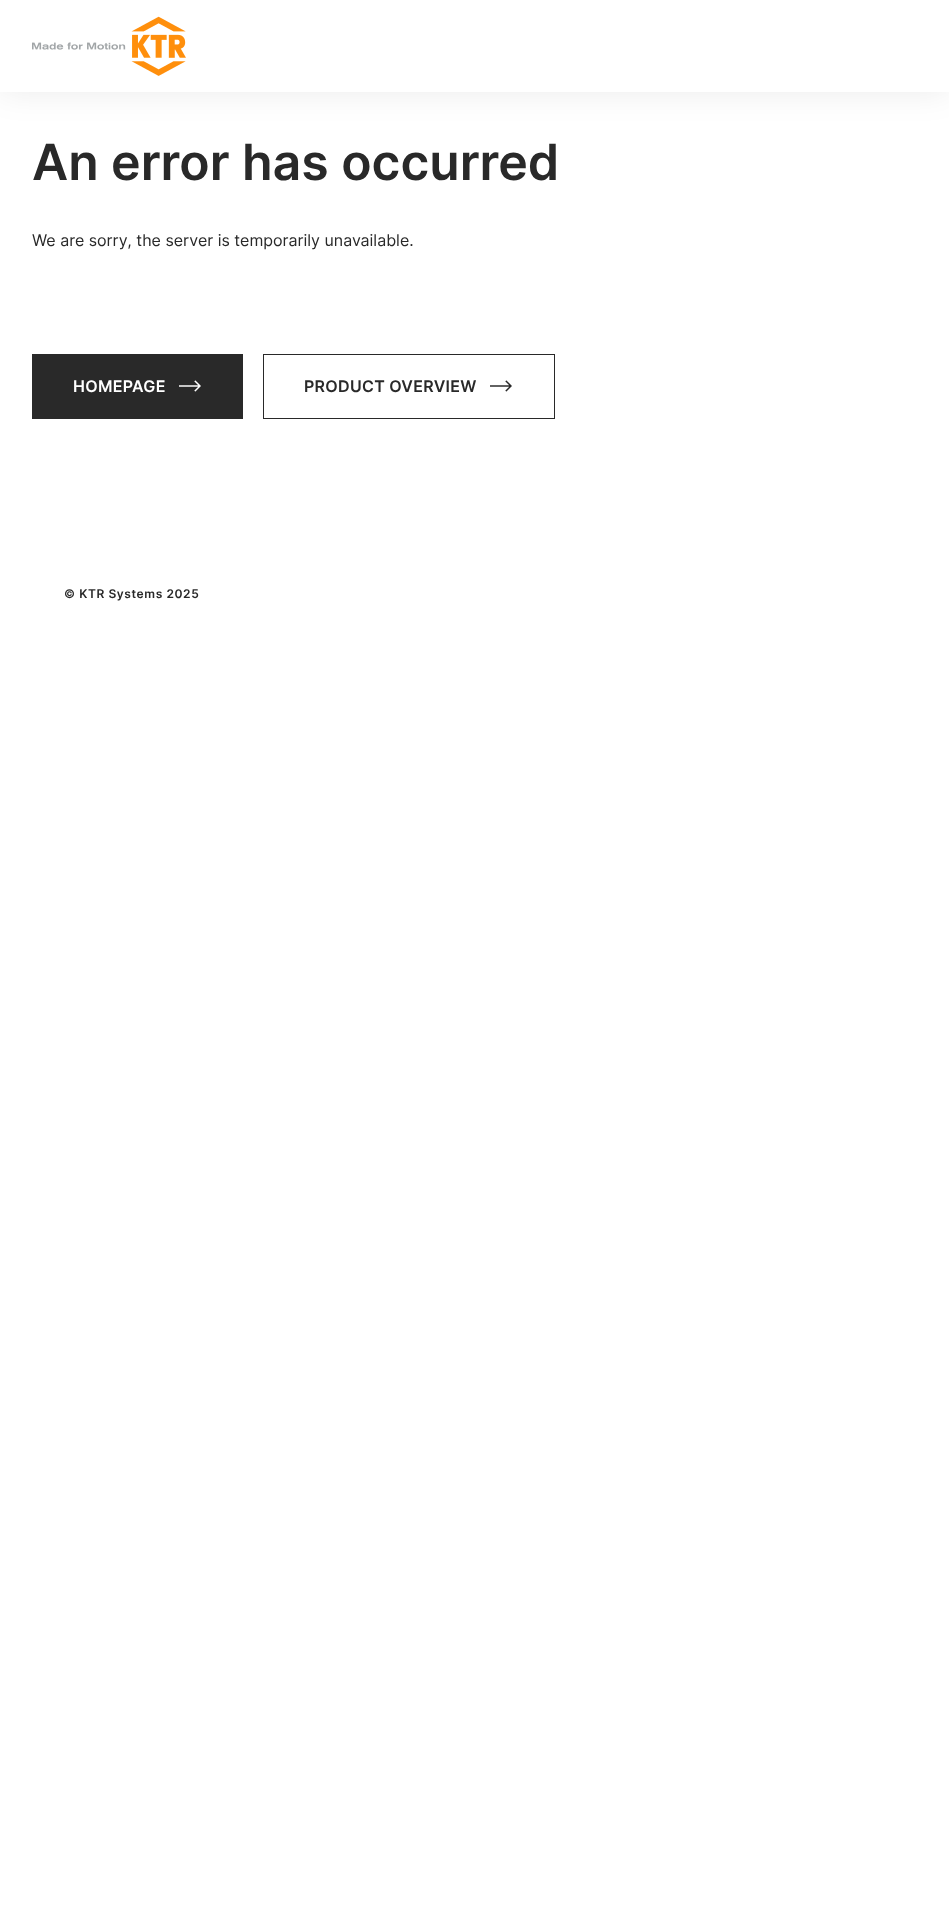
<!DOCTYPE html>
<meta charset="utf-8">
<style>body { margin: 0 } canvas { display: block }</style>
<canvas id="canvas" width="949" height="1910"></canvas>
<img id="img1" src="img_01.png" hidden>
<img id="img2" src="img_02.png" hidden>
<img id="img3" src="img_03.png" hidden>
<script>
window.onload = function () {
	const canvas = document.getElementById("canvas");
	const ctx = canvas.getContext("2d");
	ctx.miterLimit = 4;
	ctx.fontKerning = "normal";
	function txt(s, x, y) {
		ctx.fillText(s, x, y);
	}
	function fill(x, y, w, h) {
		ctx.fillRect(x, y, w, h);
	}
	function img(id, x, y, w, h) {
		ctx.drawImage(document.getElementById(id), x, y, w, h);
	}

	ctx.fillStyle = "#FFFFFF";
	fill(0, 0, 949, 1910);
	ctx.fillStyle = "rgba(0, 0, 0, 0.08)";
	ctx.filter = "blur(16px)";
	ctx.beginPath();
	ctx.rect(0, 0, 949, 92);
	ctx.fill();
	ctx.filter = "none";
	ctx.fillStyle = "#FFFFFF";
	fill(0, 0, 949, 92);
	img("img1", 32, 16, 154, 60);
	ctx.fillStyle = "#292929";
	fill(32, 354, 211, 65);
	img("img2", 179, 380, 22, 12);
	ctx.strokeStyle = "#292929";
	ctx.strokeRect(263.5, 354.5, 291, 64);
	img("img3", 490, 380, 22, 12);
	ctx.font = "600 50px Inter";
	txt("An error has occurred", 32, 180);
	ctx.font = "16px Inter";
	txt("We are sorry, the server is temporarily unavailable.", 32, 246);
	ctx.letterSpacing = "0.3px";
	ctx.font = "600 16px Inter";
	ctx.fillStyle = "#FFFFFF";
	txt("HOMEPAGE", 73, 392);
	ctx.fillStyle = "#292929";
	txt("PRODUCT OVERVIEW", 304, 392);
	ctx.letterSpacing = "0.6px";
	ctx.font = "600 12px Inter";
	txt("© KTR Systems 2025", 64, 598);
};
</script>
